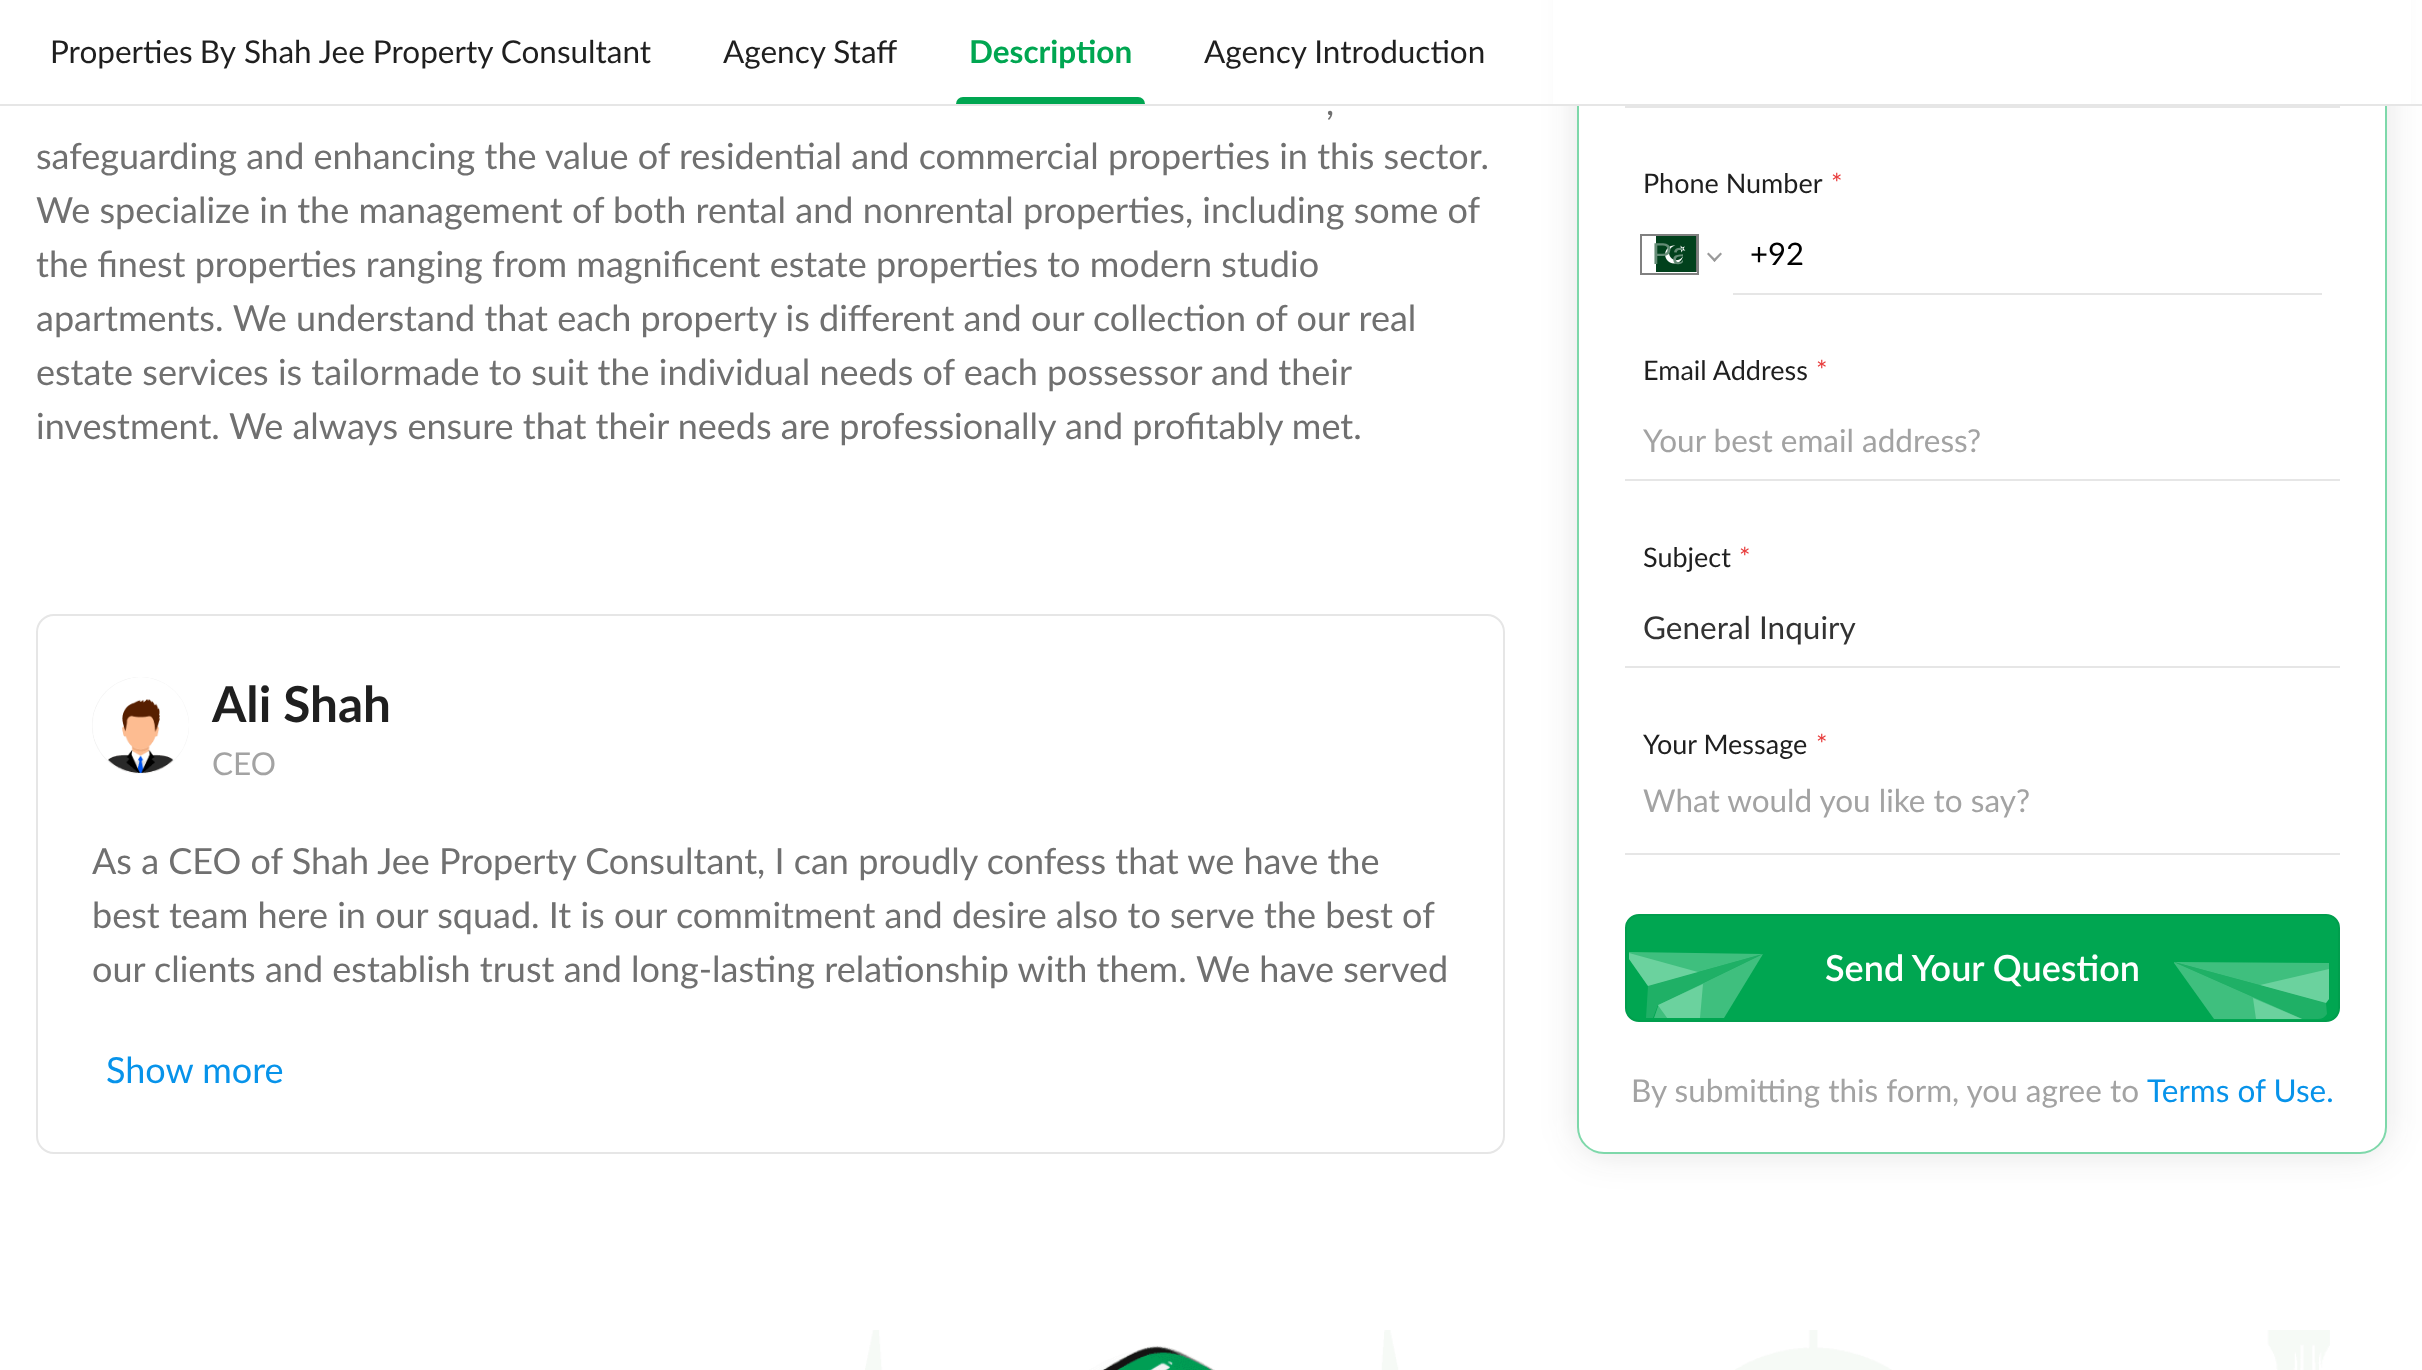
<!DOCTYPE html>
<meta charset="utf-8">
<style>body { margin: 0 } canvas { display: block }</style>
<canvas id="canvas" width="2422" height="1370"></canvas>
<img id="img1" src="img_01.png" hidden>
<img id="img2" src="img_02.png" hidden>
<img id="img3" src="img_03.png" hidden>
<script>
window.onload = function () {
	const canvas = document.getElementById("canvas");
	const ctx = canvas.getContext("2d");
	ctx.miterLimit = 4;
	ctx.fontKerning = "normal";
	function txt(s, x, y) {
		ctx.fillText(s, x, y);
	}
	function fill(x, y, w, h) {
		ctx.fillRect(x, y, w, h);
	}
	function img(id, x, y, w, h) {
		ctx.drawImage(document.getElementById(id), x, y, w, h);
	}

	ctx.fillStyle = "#FFFFFF";
	fill(0, 0, 2422, 1370);
	ctx.fillStyle = "rgba(30, 30, 30, 0.12)";
	ctx.filter = "blur(18px)";
	ctx.beginPath();
	ctx.roundRect(1577, -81, 810, 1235, 27);
	ctx.fill();
	ctx.filter = "none";
	ctx.fillStyle = "#FFFFFF";
	ctx.beginPath();
	ctx.roundRect(1578, -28, 808, 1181, 26);
	ctx.fill();
	ctx.strokeStyle = "#7ED8AA";
	ctx.lineWidth = 2;
	ctx.stroke();
	fill(1553, 0, 858, 104);
	ctx.fillStyle = "#E6E6E6";
	fill(0, 104, 2422, 2);
	ctx.fillStyle = "#00A651";
	ctx.beginPath();
	ctx.roundRect(956, 97, 189, 7, [7, 7, 0, 0]);
	ctx.fill();
	ctx.beginPath();
	ctx.roundRect(37, 615, 1467, 538, 17);
	ctx.strokeStyle = "#E6E6E6";
	ctx.stroke();
	ctx.fillStyle = "#E6E6E6";
	ctx.beginPath();
	ctx.arc(140.5, 725.5, 48.5, 0, Math.PI * 2);
	ctx.fill();
	img("img1", 92, 677, 97, 97);
	fill(1625, 106, 715, 2);
	ctx.strokeStyle = "#808080";
	ctx.strokeRect(1641, 235, 57, 39);
	ctx.strokeStyle = "#737373";
	ctx.strokeRect(1644, 237, 52, 34);
	img("img2", 1643, 236, 53, 36);
	ctx.fillStyle = "#9A9A9A";
	ctx.beginPath();
	ctx.moveTo(1720.5, 252.5);
	ctx.lineTo(1722, 254);
	ctx.lineTo(1714.5, 262);
	ctx.lineTo(1713, 260);
	ctx.closePath();
	ctx.fill();
	ctx.beginPath();
	ctx.moveTo(1708.5, 252.5);
	ctx.lineTo(1716, 260);
	ctx.lineTo(1714.5, 262);
	ctx.lineTo(1707, 254);
	ctx.closePath();
	ctx.fill();
	ctx.fillStyle = "#E6E6E6";
	fill(1733, 293, 589, 2);
	fill(1625, 479, 715, 2);
	fill(1625, 666, 715, 2);
	fill(1625, 853, 715, 2);
	ctx.fillStyle = "#00A651";
	ctx.beginPath();
	ctx.roundRect(1626, 915, 713, 106, 13);
	ctx.fill();
	ctx.strokeStyle = "#009E4D";
	ctx.stroke();
	ctx.fillStyle = "#3FBF7E";
	ctx.beginPath();
	ctx.moveTo(1763, 954);
	ctx.lineTo(1724, 1018);
	ctx.lineTo(1667, 1018);
	ctx.lineTo(1658, 1005);
	ctx.closePath();
	ctx.fill();
	ctx.beginPath();
	ctx.moveTo(1629, 959);
	ctx.lineTo(1629, 952);
	ctx.lineTo(1763, 954);
	ctx.lineTo(1648, 986);
	ctx.closePath();
	ctx.fill();
	ctx.fillStyle = "rgba(62, 186, 123, 0.5)";
	ctx.beginPath();
	ctx.moveTo(1763, 954);
	ctx.lineTo(1658, 1005);
	ctx.lineTo(1653, 1018);
	ctx.lineTo(1646, 1018);
	ctx.lineTo(1648, 986);
	ctx.closePath();
	ctx.fill();
	ctx.fillStyle = "rgba(126, 216, 170, 0.5)";
	ctx.beginPath();
	ctx.moveTo(1667, 1018);
	ctx.lineTo(1654, 1018);
	ctx.lineTo(1658.5, 1005);
	ctx.closePath();
	ctx.fill();
	ctx.fillStyle = "rgba(152, 230, 190, 0.5)";
	ctx.beginPath();
	ctx.moveTo(1700, 1018);
	ctx.lineTo(1667, 1018);
	ctx.lineTo(1658, 1005);
	ctx.lineTo(1703, 984);
	ctx.closePath();
	ctx.fill();
	ctx.beginPath();
	ctx.moveTo(1698, 972);
	ctx.lineTo(1648, 986);
	ctx.lineTo(1629, 959);
	ctx.lineTo(1629, 953);
	ctx.closePath();
	ctx.fill();
	ctx.fillStyle = "#3FBF7E";
	ctx.beginPath();
	ctx.moveTo(2174, 963);
	ctx.lineTo(2174, 962);
	ctx.lineTo(2303, 1019);
	ctx.lineTo(2214, 1019);
	ctx.closePath();
	ctx.fill();
	ctx.beginPath();
	ctx.moveTo(2174, 962);
	ctx.lineTo(2329, 963);
	ctx.lineTo(2329, 999);
	ctx.lineTo(2326, 1003);
	ctx.closePath();
	ctx.fill();
	ctx.fillStyle = "rgba(62, 186, 123, 0.5)";
	ctx.beginPath();
	ctx.moveTo(2174, 962);
	ctx.lineTo(2326, 1003);
	ctx.lineTo(2327, 1014);
	ctx.bezierCurveTo(2325, 1017, 2322, 1019, 2318, 1019);
	ctx.lineTo(2303, 1019);
	ctx.closePath();
	ctx.fill();
	ctx.fillStyle = "rgba(152, 230, 190, 0.5)";
	ctx.beginPath();
	ctx.moveTo(2302, 1019);
	ctx.lineTo(2256, 1019);
	ctx.lineTo(2253, 998);
	ctx.closePath();
	ctx.fill();
	ctx.beginPath();
	ctx.moveTo(2260, 985);
	ctx.lineTo(2329, 969);
	ctx.lineTo(2329, 999);
	ctx.lineTo(2326, 1003);
	ctx.closePath();
	ctx.fill();
	img("img3", 865, 1330, 1465, 40);
	ctx.wordSpacing = "-1px";
	ctx.font = "31.5px Lato";
	ctx.fillStyle = "#1F1F1F";
	txt("Properties By", 50, 63);
	ctx.wordSpacing = "0px";
	txt("Shah Jee Property Consultant", 244, 63);
	txt("Agency Staff", 723, 63);
	ctx.font = "bold 31.5px Lato";
	ctx.fillStyle = "#00A651";
	txt("Description", 969, 63);
	ctx.font = "31.5px Lato";
	ctx.fillStyle = "#1F1F1F";
	txt("Agency Introduction", 1204, 63);
	ctx.font = "36px Lato";
	ctx.fillStyle = "#707070";
	txt(",", 1326, 115);
	txt("safeguarding and enhancing the value of residential and commercial properties in this sector.", 36, 169);
	txt("We specialize in the management of both rental and nonrental properties, including some of", 36, 223);
	txt("the finest properties ranging from magnificent estate properties to modern studio", 36, 277);
	txt("apartments. We understand that each property is different and our collection of our real", 36, 331);
	txt("estate services is tailormade to suit the individual needs of each possessor and their", 36, 385);
	txt("investment. We always ensure that their needs are professionally and profitably met.", 36, 439);
	ctx.font = "bold 49.5px Lato";
	ctx.fillStyle = "#1F1F1F";
	txt("Ali Shah", 212, 722);
	ctx.font = "31.5px Lato";
	ctx.fillStyle = "#A3A3A3";
	txt("CEO", 212, 775);
	ctx.font = "36px Lato";
	ctx.fillStyle = "#707070";
	txt("As a CEO of Shah Jee Property Consultant, I can proudly confess that we have the", 92, 874);
	txt("best team here in our squad. It is our commitment and desire also to serve the best of", 92, 928);
	txt("our clients and establish trust and long-lasting relationship with them. We have served", 92, 982);
	ctx.fillStyle = "#0793EA";
	txt("Show more", 106, 1083);
	ctx.font = "27px Lato";
	ctx.fillStyle = "#1F1F1F";
	txt("Phone Number", 1643, 193);
	ctx.fillStyle = "#E83A3A";
	txt("*", 1831, 193);
	ctx.save();
	ctx.beginPath();
	ctx.rect(1652, 234, 31, 38);
	ctx.clip();
	ctx.font = "30px Liberation Sans";
	ctx.fillStyle = "#658C76";
	txt("Pa", 1652, 264);
	ctx.restore();
	ctx.font = "31px Lato";
	ctx.fillStyle = "#000000";
	txt("+92", 1750, 265);
	ctx.font = "27px Lato";
	ctx.fillStyle = "#1F1F1F";
	txt("Email Address", 1643, 380);
	ctx.fillStyle = "#E83A3A";
	txt("*", 1816, 380);
	ctx.font = "31.5px Lato";
	ctx.fillStyle = "#A3A3A3";
	txt("Your best email address?", 1643, 452);
	ctx.font = "27px Lato";
	ctx.fillStyle = "#1F1F1F";
	txt("Subject", 1643, 567);
	ctx.fillStyle = "#E83A3A";
	txt("*", 1739, 567);
	ctx.font = "31.5px Lato";
	ctx.fillStyle = "#333333";
	txt("General Inquiry", 1643, 639);
	ctx.font = "27px Lato";
	ctx.fillStyle = "#1F1F1F";
	txt("Your Message", 1643, 754);
	ctx.fillStyle = "#E83A3A";
	txt("*", 1816, 754);
	ctx.font = "31.5px Lato";
	ctx.fillStyle = "#A3A3A3";
	txt("What would you like to say?", 1643, 812);
	ctx.font = "600 36px Lato";
	ctx.fillStyle = "#FFFFFF";
	txt("Send Your Question", 1825, 981);
	ctx.font = "31.5px Lato";
	ctx.fillStyle = "#A3A3A3";
	txt("By submitting this form, you agree to", 1631, 1102);
	ctx.fillStyle = "#0793EA";
	txt("Terms of Use.", 2147, 1102);
};
</script>
